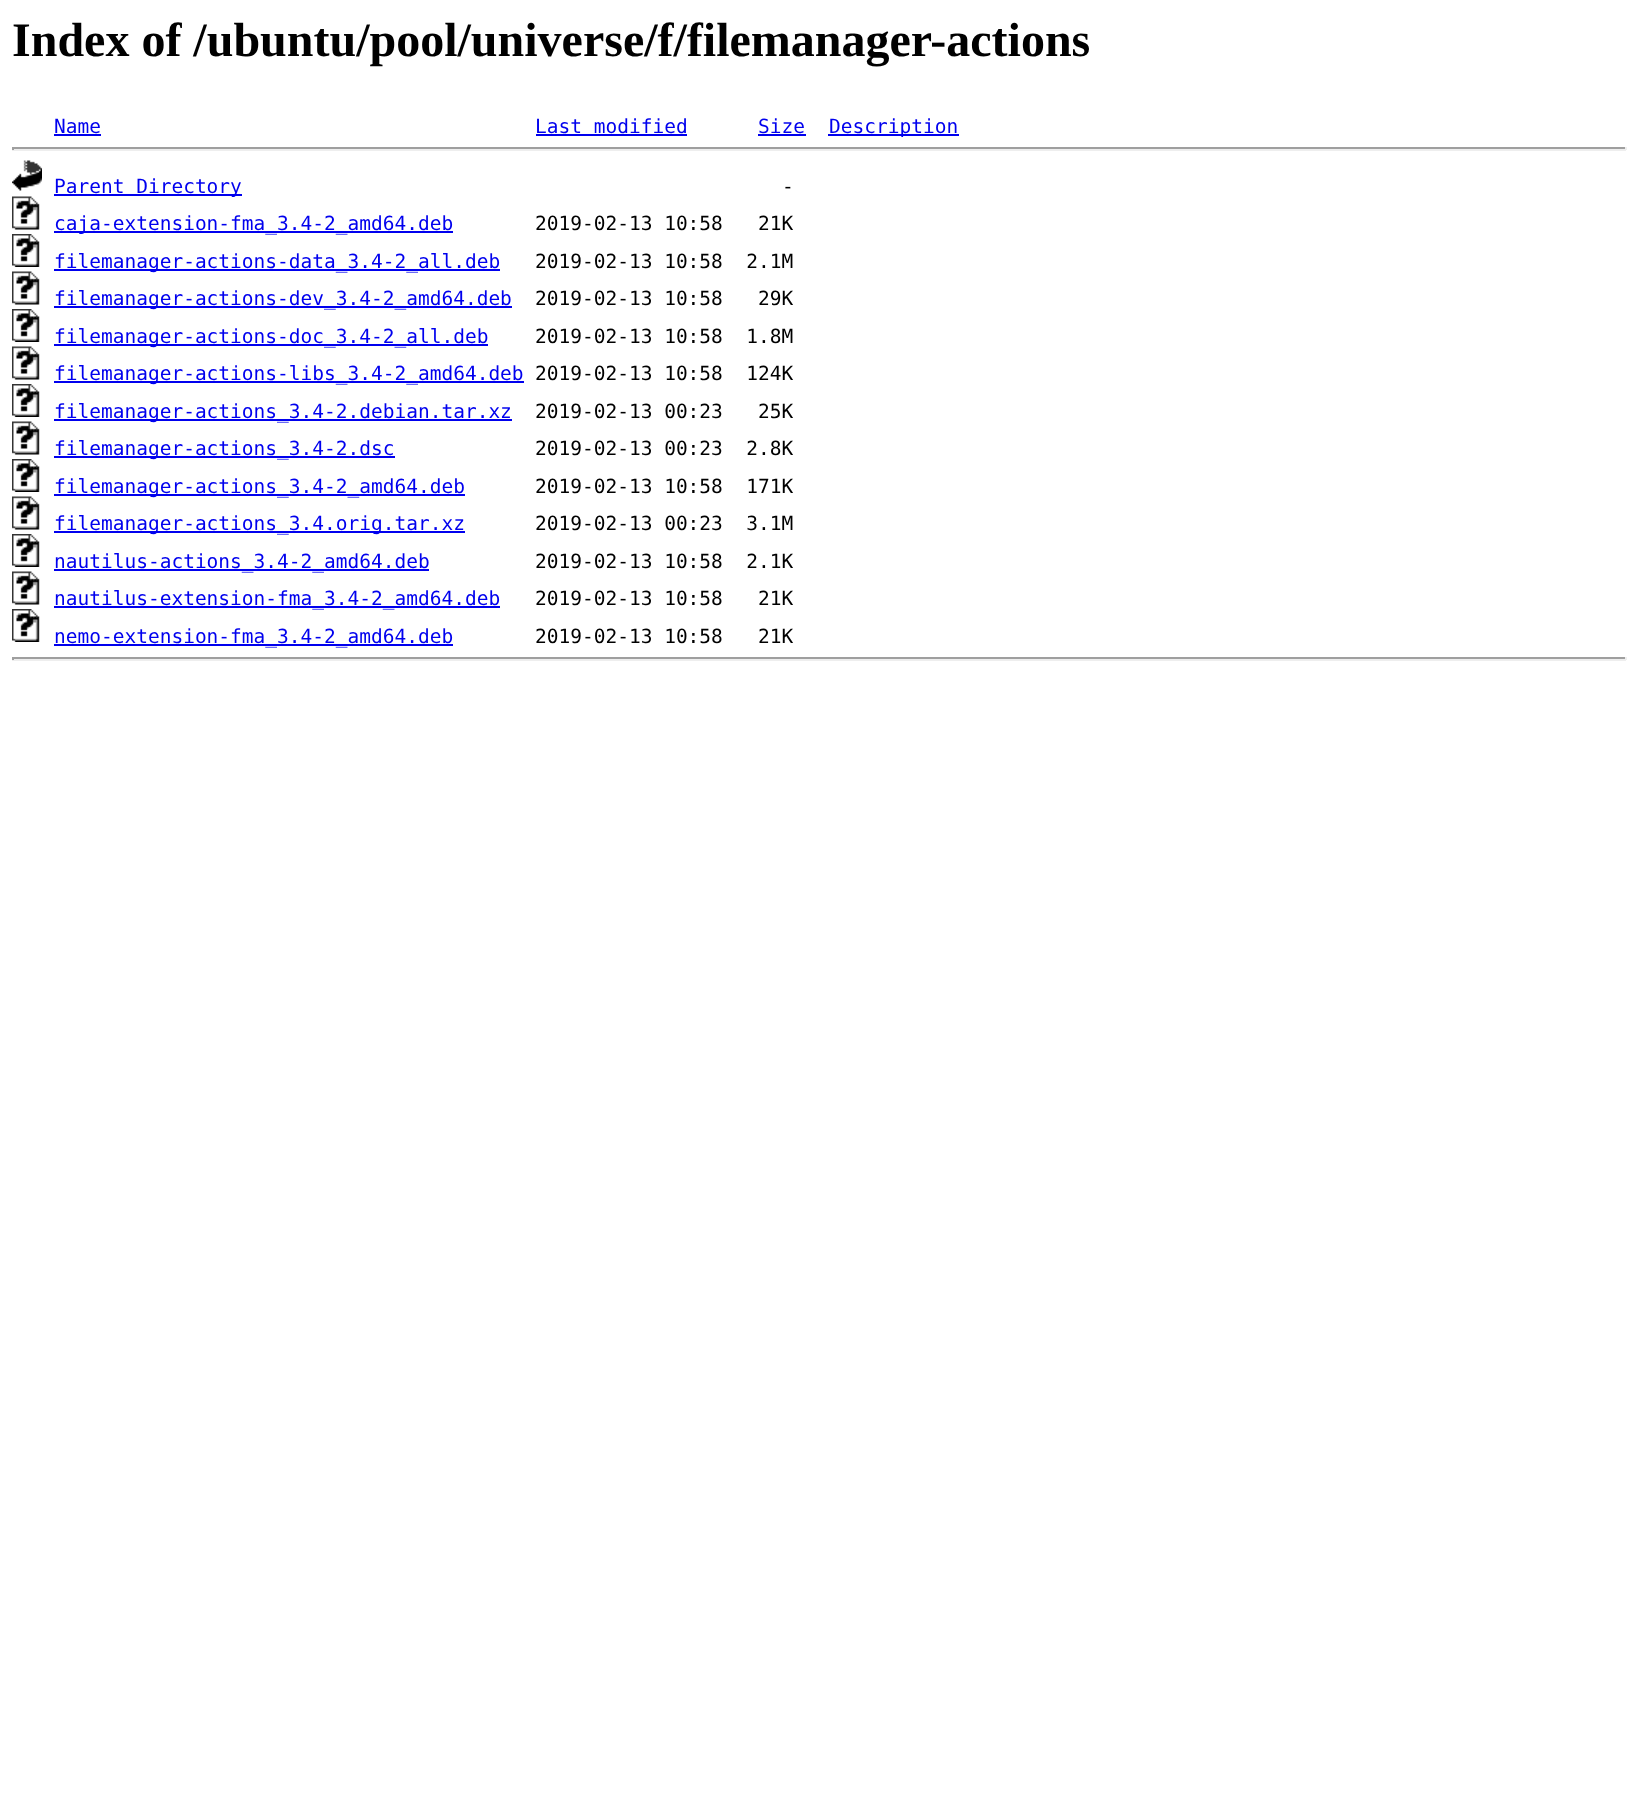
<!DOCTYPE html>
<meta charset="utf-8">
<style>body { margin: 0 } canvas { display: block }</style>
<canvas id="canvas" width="1637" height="1796"></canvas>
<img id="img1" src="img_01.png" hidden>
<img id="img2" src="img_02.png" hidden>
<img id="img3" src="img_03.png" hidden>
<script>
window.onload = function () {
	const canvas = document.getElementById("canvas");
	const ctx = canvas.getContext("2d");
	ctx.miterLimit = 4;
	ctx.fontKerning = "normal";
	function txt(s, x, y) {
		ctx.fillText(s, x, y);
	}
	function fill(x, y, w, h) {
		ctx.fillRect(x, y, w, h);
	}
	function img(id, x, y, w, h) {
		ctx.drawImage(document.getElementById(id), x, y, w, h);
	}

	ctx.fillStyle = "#FFFFFF";
	fill(0, 0, 1637, 1796);
	ctx.fillStyle = "#0000EE";
	fill(54, 134, 47, 2);
	fill(536, 134, 151, 2);
	fill(758, 134, 48, 2);
	fill(828, 134, 131, 2);
	ctx.fillStyle = "#9F9F9F";
	fill(12, 147, 1614, 2);
	ctx.fillStyle = "#EEEEEE";
	fill(1625, 147, 2, 3);
	fill(12, 149, 1614, 2);
	ctx.fillStyle = "#9F9F9F";
	fill(12, 147, 2, 3);
	img("img1", 12, 160, 30, 31);
	ctx.fillStyle = "#0000EE";
	fill(54, 194, 188, 2);
	img("img2", 12, 196, 28, 34);
	fill(54, 231, 399, 2);
	img("img3", 12, 234, 28, 33);
	fill(54, 269, 446, 2);
	img("img2", 12, 271, 28, 34);
	fill(54, 306, 458, 2);
	img("img3", 12, 309, 28, 33);
	fill(54, 344, 434, 2);
	img("img2", 12, 346, 28, 34);
	fill(54, 381, 470, 2);
	img("img3", 12, 384, 28, 33);
	fill(54, 419, 458, 2);
	img("img2", 12, 421, 28, 34);
	fill(54, 456, 341, 2);
	img("img3", 12, 459, 28, 33);
	fill(54, 494, 411, 2);
	img("img2", 12, 496, 28, 34);
	fill(54, 531, 411, 2);
	img("img3", 12, 534, 28, 33);
	fill(54, 569, 375, 2);
	img("img2", 12, 571, 28, 34);
	fill(54, 606, 446, 2);
	img("img3", 12, 609, 28, 33);
	fill(54, 644, 399, 2);
	ctx.fillStyle = "#9F9F9F";
	fill(12, 657, 1614, 2);
	ctx.fillStyle = "#EEEEEE";
	fill(1625, 657, 2, 3);
	fill(12, 659, 1614, 2);
	ctx.fillStyle = "#9F9F9F";
	fill(12, 657, 2, 3);
	ctx.font = "bold 48px Liberation Serif";
	ctx.fillStyle = "#000000";
	txt("Index of /ubuntu/pool/universe/f/filemanager-actions", 12, 56);
	ctx.font = "19.5px DejaVu Sans Mono";
	ctx.fillStyle = "#0000EE";
	txt("Name", 54, 133);
	txt("Last modified", 535, 133);
	txt("Size", 758, 133);
	txt("Description", 829, 133);
	txt("Parent Directory", 54, 193);
	ctx.fillStyle = "#000000";
	txt("-", 782, 193);
	ctx.fillStyle = "#0000EE";
	txt("caja-extension-fma_3.4-2_amd64.deb", 54, 230);
	ctx.fillStyle = "#000000";
	txt("2019-02-13 10:58   21K", 535, 230);
	ctx.fillStyle = "#0000EE";
	txt("filemanager-actions-data_3.4-2_all.deb", 54, 268);
	ctx.fillStyle = "#000000";
	txt("2019-02-13 10:58  2.1M", 535, 268);
	ctx.fillStyle = "#0000EE";
	txt("filemanager-actions-dev_3.4-2_amd64.deb", 54, 305);
	ctx.fillStyle = "#000000";
	txt("2019-02-13 10:58   29K", 535, 305);
	ctx.fillStyle = "#0000EE";
	txt("filemanager-actions-doc_3.4-2_all.deb", 54, 343);
	ctx.fillStyle = "#000000";
	txt("2019-02-13 10:58  1.8M", 535, 343);
	ctx.fillStyle = "#0000EE";
	txt("filemanager-actions-libs_3.4-2_amd64.deb", 54, 380);
	ctx.fillStyle = "#000000";
	txt("2019-02-13 10:58  124K", 535, 380);
	ctx.fillStyle = "#0000EE";
	txt("filemanager-actions_3.4-2.debian.tar.xz", 54, 418);
	ctx.fillStyle = "#000000";
	txt("2019-02-13 00:23   25K", 535, 418);
	ctx.fillStyle = "#0000EE";
	txt("filemanager-actions_3.4-2.dsc", 54, 455);
	ctx.fillStyle = "#000000";
	txt("2019-02-13 00:23  2.8K", 535, 455);
	ctx.fillStyle = "#0000EE";
	txt("filemanager-actions_3.4-2_amd64.deb", 54, 493);
	ctx.fillStyle = "#000000";
	txt("2019-02-13 10:58  171K", 535, 493);
	ctx.fillStyle = "#0000EE";
	txt("filemanager-actions_3.4.orig.tar.xz", 54, 530);
	ctx.fillStyle = "#000000";
	txt("2019-02-13 00:23  3.1M", 535, 530);
	ctx.fillStyle = "#0000EE";
	txt("nautilus-actions_3.4-2_amd64.deb", 54, 568);
	ctx.fillStyle = "#000000";
	txt("2019-02-13 10:58  2.1K", 535, 568);
	ctx.fillStyle = "#0000EE";
	txt("nautilus-extension-fma_3.4-2_amd64.deb", 54, 605);
	ctx.fillStyle = "#000000";
	txt("2019-02-13 10:58   21K", 535, 605);
	ctx.fillStyle = "#0000EE";
	txt("nemo-extension-fma_3.4-2_amd64.deb", 54, 643);
	ctx.fillStyle = "#000000";
	txt("2019-02-13 10:58   21K", 535, 643);
};
</script>
